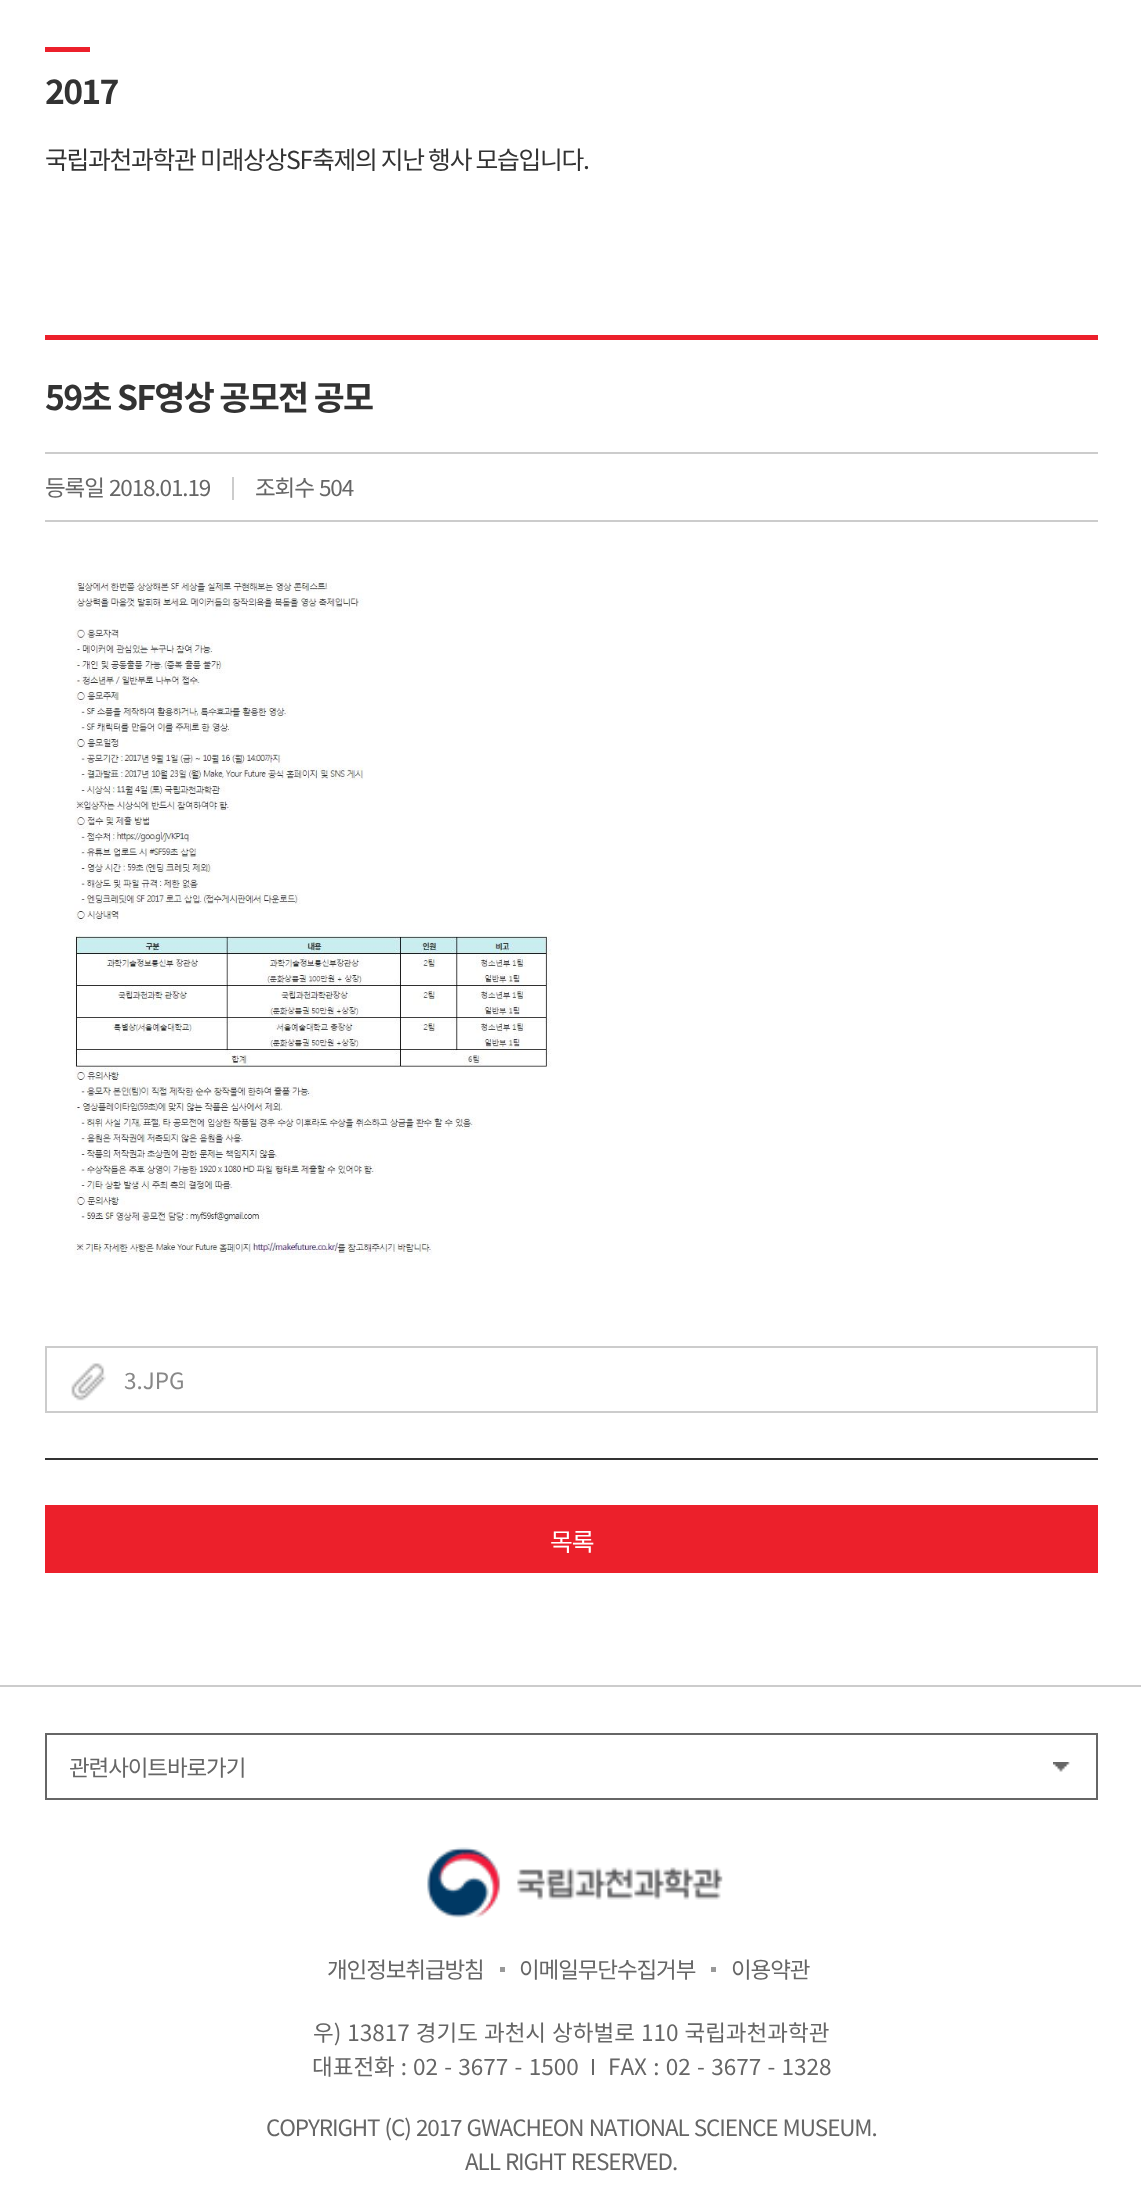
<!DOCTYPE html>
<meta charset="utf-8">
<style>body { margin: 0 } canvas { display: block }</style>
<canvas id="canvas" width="1141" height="2199"></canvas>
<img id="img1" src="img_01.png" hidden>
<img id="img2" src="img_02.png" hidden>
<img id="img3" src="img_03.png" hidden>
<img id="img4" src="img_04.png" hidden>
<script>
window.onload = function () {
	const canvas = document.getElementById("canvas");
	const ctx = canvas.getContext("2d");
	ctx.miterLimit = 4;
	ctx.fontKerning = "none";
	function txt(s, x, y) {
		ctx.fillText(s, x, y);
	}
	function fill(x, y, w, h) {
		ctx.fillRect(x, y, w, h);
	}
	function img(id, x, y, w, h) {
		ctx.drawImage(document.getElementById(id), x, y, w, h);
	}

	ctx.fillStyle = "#FFFFFF";
	fill(0, 0, 1141, 2199);
	ctx.fillStyle = "#EC202B";
	fill(45, 47, 45, 5);
	fill(45, 335, 1053, 5);
	ctx.fillStyle = "#333333";
	fill(45, 1458, 1053, 2);
	ctx.fillStyle = "#CCCCCC";
	fill(45, 520, 1053, 2);
	fill(45, 452, 1053, 2);
	fill(232, 477, 2, 23);
	img("img1", 74, 579, 478, 676);
	ctx.strokeStyle = "#CCCCCC";
	ctx.lineWidth = 2;
	ctx.strokeRect(46, 1347, 1051, 65);
	img("img2", 71, 1363, 35, 38);
	ctx.fillStyle = "#EC202B";
	fill(45, 1505, 1053, 68);
	ctx.fillStyle = "#CCCCCC";
	fill(0, 1685, 1141, 2);
	ctx.strokeStyle = "#666666";
	ctx.strokeRect(46, 1734, 1051, 65);
	img("img3", 1053, 1762, 17, 10);
	img("img4", 427, 1847, 296, 71);
	ctx.fillStyle = "#999999";
	fill(500, 1967, 5, 5);
	fill(711, 1967, 5, 5);
	ctx.fillStyle = "#666666";
	fill(592, 2059, 2, 16);
	ctx.letterSpacing = "-1.75px";
	ctx.font = "bold 33.75px Noto Sans CJK KR";
	ctx.fillStyle = "#333333";
	txt("2017", 45, 104);
	ctx.letterSpacing = "-1.25px";
	ctx.font = "24.75px Noto Sans CJK KR";
	txt("국립과천과학관 미래상상SF축제의 지난 행사 모습입니다.", 45, 169);
	ctx.letterSpacing = "-1.75px";
	ctx.wordSpacing = "0.5px";
	ctx.font = "bold 33.75px Noto Sans CJK KR";
	txt("59초 SF영상 공모전 공모", 45, 410);
	ctx.letterSpacing = "-1.12px";
	ctx.wordSpacing = "0px";
	ctx.font = "22.5px Noto Sans CJK KR";
	ctx.fillStyle = "#666666";
	txt("등록일", 45, 496);
	txt("2018.01.19", 109, 496);
	txt("조회수", 255, 496);
	txt("504", 319, 496);
	ctx.letterSpacing = "0px";
	ctx.fillStyle = "#888888";
	txt("3.JPG", 124, 1389);
	ctx.letterSpacing = "-1px";
	ctx.font = "24.75px Noto Sans CJK KR";
	ctx.fillStyle = "#FFFFFF";
	txt("목록", 550, 1551);
	ctx.letterSpacing = "-1.12px";
	ctx.font = "22.5px Noto Sans CJK KR";
	ctx.fillStyle = "#666666";
	txt("관련사이트바로가기", 69, 1776);
	txt("개인정보취급방침", 327, 1978);
	txt("이메일무단수집거부", 519, 1978);
	txt("이용약관", 731, 1978);
	ctx.letterSpacing = "0px";
	ctx.wordSpacing = "1px";
	txt("우) 13817 경기도 과천시 상하벌로 110 국립과천과학관", 313, 2041);
	txt("대표전화 :", 312, 2075);
	ctx.wordSpacing = "1.25px";
	txt("02 - 3677 - 1500", 413, 2075);
	txt("FAX : 02 - 3677 - 1328", 608, 2075);
	ctx.letterSpacing = "-1.12px";
	txt("COPYRIGHT (C) 2017 GWACHEON NATIONAL SCIENCE MUSEUM.", 266, 2136);
	txt("ALL RIGHT RESERVED.", 465, 2170);
};
</script>
